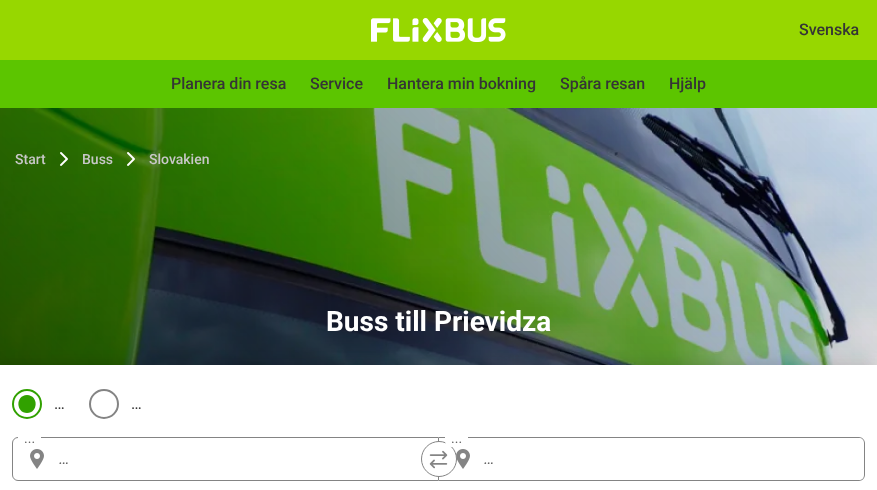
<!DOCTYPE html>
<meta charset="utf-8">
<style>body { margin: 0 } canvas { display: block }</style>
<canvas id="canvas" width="877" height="490"></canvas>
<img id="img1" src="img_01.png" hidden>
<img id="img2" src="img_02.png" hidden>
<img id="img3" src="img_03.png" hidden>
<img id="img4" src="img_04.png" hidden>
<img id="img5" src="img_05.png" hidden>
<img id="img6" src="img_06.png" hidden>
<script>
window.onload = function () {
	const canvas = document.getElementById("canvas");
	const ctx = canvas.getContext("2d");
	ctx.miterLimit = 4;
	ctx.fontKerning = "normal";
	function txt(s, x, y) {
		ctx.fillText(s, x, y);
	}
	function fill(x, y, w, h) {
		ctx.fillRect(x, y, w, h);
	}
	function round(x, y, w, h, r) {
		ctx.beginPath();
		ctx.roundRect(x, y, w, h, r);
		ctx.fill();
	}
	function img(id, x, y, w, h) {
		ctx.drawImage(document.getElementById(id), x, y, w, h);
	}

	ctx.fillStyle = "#97D700";
	fill(0, 0, 877, 490);
	img("img1", 371, 18, 135, 24);
	ctx.fillStyle = "#5CC500";
	fill(0, 60, 877, 48);
	img("img2", 0, 108, 877, 257);
	img("img3", 60, 152, 8, 14);
	img("img4", 127, 152, 8, 14);
	ctx.fillStyle = "rgba(0, 0, 0, 0.15)";
	ctx.filter = "blur(7.5px)";
	ctx.beginPath();
	ctx.rect(0, 365, 877, 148);
	ctx.fill();
	ctx.filter = "none";
	ctx.fillStyle = "#FFFFFF";
	fill(0, 365, 877, 125);
	ctx.beginPath();
	ctx.arc(27, 404, 14, 0, Math.PI * 2);
	ctx.strokeStyle = "#31A100";
	ctx.lineWidth = 2;
	ctx.stroke();
	ctx.fillStyle = "#31A100";
	ctx.beginPath();
	ctx.moveTo(27, 395);
	ctx.bezierCurveTo(15, 395.5, 16, 413, 27, 413);
	ctx.bezierCurveTo(38, 413, 39, 395.5, 27, 395);
	ctx.closePath();
	ctx.fill();
	ctx.beginPath();
	ctx.arc(104, 404, 14, 0, Math.PI * 2);
	ctx.strokeStyle = "#848484";
	ctx.stroke();
	ctx.beginPath();
	ctx.roundRect(12.5, 437.5, 426, 43, [5.5, 0, 0, 5.5]);
	ctx.lineWidth = 1;
	ctx.stroke();
	ctx.fillStyle = "#FFFFFF";
	round(18, 429, 23, 18, 6);
	img("img5", 30, 449, 14, 20);
	ctx.fillStyle = "#848484";
	ctx.beginPath();
	ctx.moveTo(439, 437);
	ctx.lineTo(859, 437);
	ctx.bezierCurveTo(862, 437, 865, 440, 865, 443);
	ctx.lineTo(865, 475);
	ctx.bezierCurveTo(865, 478, 862, 481, 859, 481);
	ctx.lineTo(439, 481);
	ctx.closePath();
	ctx.moveTo(439, 438);
	ctx.lineTo(859, 438);
	ctx.bezierCurveTo(862, 438, 864, 440, 864, 443);
	ctx.lineTo(864, 475);
	ctx.bezierCurveTo(864, 478, 862, 480, 859, 480);
	ctx.lineTo(439, 480);
	ctx.closePath();
	ctx.fill("evenodd");
	img("img5", 456, 449, 14, 20);
	ctx.fillStyle = "#FFFFFF";
	ctx.beginPath();
	ctx.arc(439, 459, 17.5, 0, Math.PI * 2);
	ctx.fill();
	ctx.stroke();
	img("img6", 429, 450, 19, 19);
	round(445, 429, 23, 18, 6);
	ctx.font = "500 16px Roboto";
	ctx.fillStyle = "#353535";
	txt("Svenska", 799, 35);
	txt("Planera din resa", 171, 89);
	txt("Service", 310, 89);
	txt("Hantera min bokning", 387, 89);
	txt("Spåra resan", 560, 89);
	txt("Hjälp", 669, 89);
	ctx.font = "500 14px Roboto";
	ctx.fillStyle = "#C8C8C8";
	txt("Start", 15, 164);
	txt("Buss", 82, 164);
	txt("Slovakien", 149, 164);
	ctx.font = "bold 28px Roboto";
	ctx.fillStyle = "#FFFFFF";
	txt("Buss till Prievidza", 326, 331);
	ctx.font = "16px Roboto";
	ctx.fillStyle = "#353535";
	txt("…", 54, 409);
	txt("…", 131, 409);
	ctx.font = "14px Roboto";
	ctx.fillStyle = "#646464";
	txt("...", 24, 443);
	ctx.font = "italic 16px Roboto";
	txt("…", 59, 464);
	ctx.font = "14px Roboto";
	txt("...", 451, 443);
	ctx.font = "italic 16px Roboto";
	txt("…", 484, 464);
};
</script>
